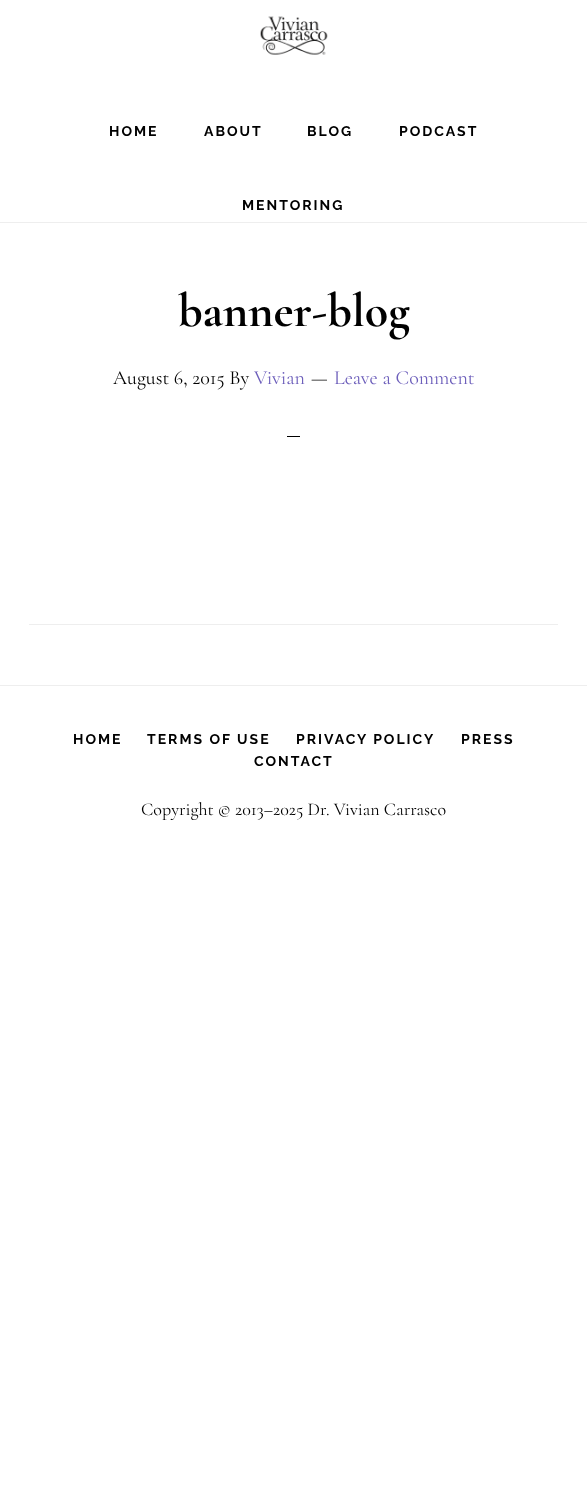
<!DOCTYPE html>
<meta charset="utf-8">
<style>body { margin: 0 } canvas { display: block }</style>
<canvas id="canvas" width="587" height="1506"></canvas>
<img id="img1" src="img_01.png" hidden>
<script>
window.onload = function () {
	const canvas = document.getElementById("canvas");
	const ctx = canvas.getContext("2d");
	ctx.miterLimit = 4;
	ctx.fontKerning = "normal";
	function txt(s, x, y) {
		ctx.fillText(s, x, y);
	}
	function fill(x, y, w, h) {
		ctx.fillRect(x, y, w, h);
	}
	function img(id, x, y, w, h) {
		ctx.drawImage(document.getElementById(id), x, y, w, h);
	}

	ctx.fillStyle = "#FFFFFF";
	fill(0, 0, 587, 1506);
	ctx.fillStyle = "#EEEEEE";
	fill(0, 222, 587, 1);
	img("img1", 260, 16, 68, 39);
	fill(29, 624, 529, 1);
	ctx.fillStyle = "#000000";
	fill(287, 436, 13, 1);
	ctx.fillStyle = "#EEEEEE";
	fill(0, 685, 587, 1);
	ctx.letterSpacing = "2px";
	ctx.font = "100 14px Raleway";
	ctx.fillStyle = "#000000";
	txt("HOME", 109, 136);
	txt("ABOUT", 204, 136);
	txt("BLOG", 307, 136);
	txt("PODCAST", 399, 136);
	txt("MENTORING", 242, 210);
	ctx.letterSpacing = "0px";
	ctx.font = "bold 48px Cormorant Garamond";
	txt("banner-blog", 178, 326);
	ctx.font = "20px Cormorant Garamond";
	txt("August 6, 2015 By", 113, 384);
	ctx.fillStyle = "#6D5FBB";
	txt("Vivian", 254, 384);
	ctx.fillStyle = "#000000";
	txt("—", 311, 384);
	ctx.fillStyle = "#6D5FBB";
	txt("Leave a Comment", 334, 384);
	ctx.letterSpacing = "2px";
	ctx.font = "100 14px Raleway";
	ctx.fillStyle = "#000000";
	txt("HOME", 73, 744);
	txt("TERMS OF USE", 147, 744);
	txt("PRIVACY POLICY", 296, 744);
	txt("PRESS", 461, 744);
	txt("CONTACT", 254, 766);
	ctx.letterSpacing = "0px";
	ctx.font = "18px Cormorant Garamond";
	txt("Copyright © 2013–2025 Dr. Vivian Carrasco", 141, 815);
};
</script>
